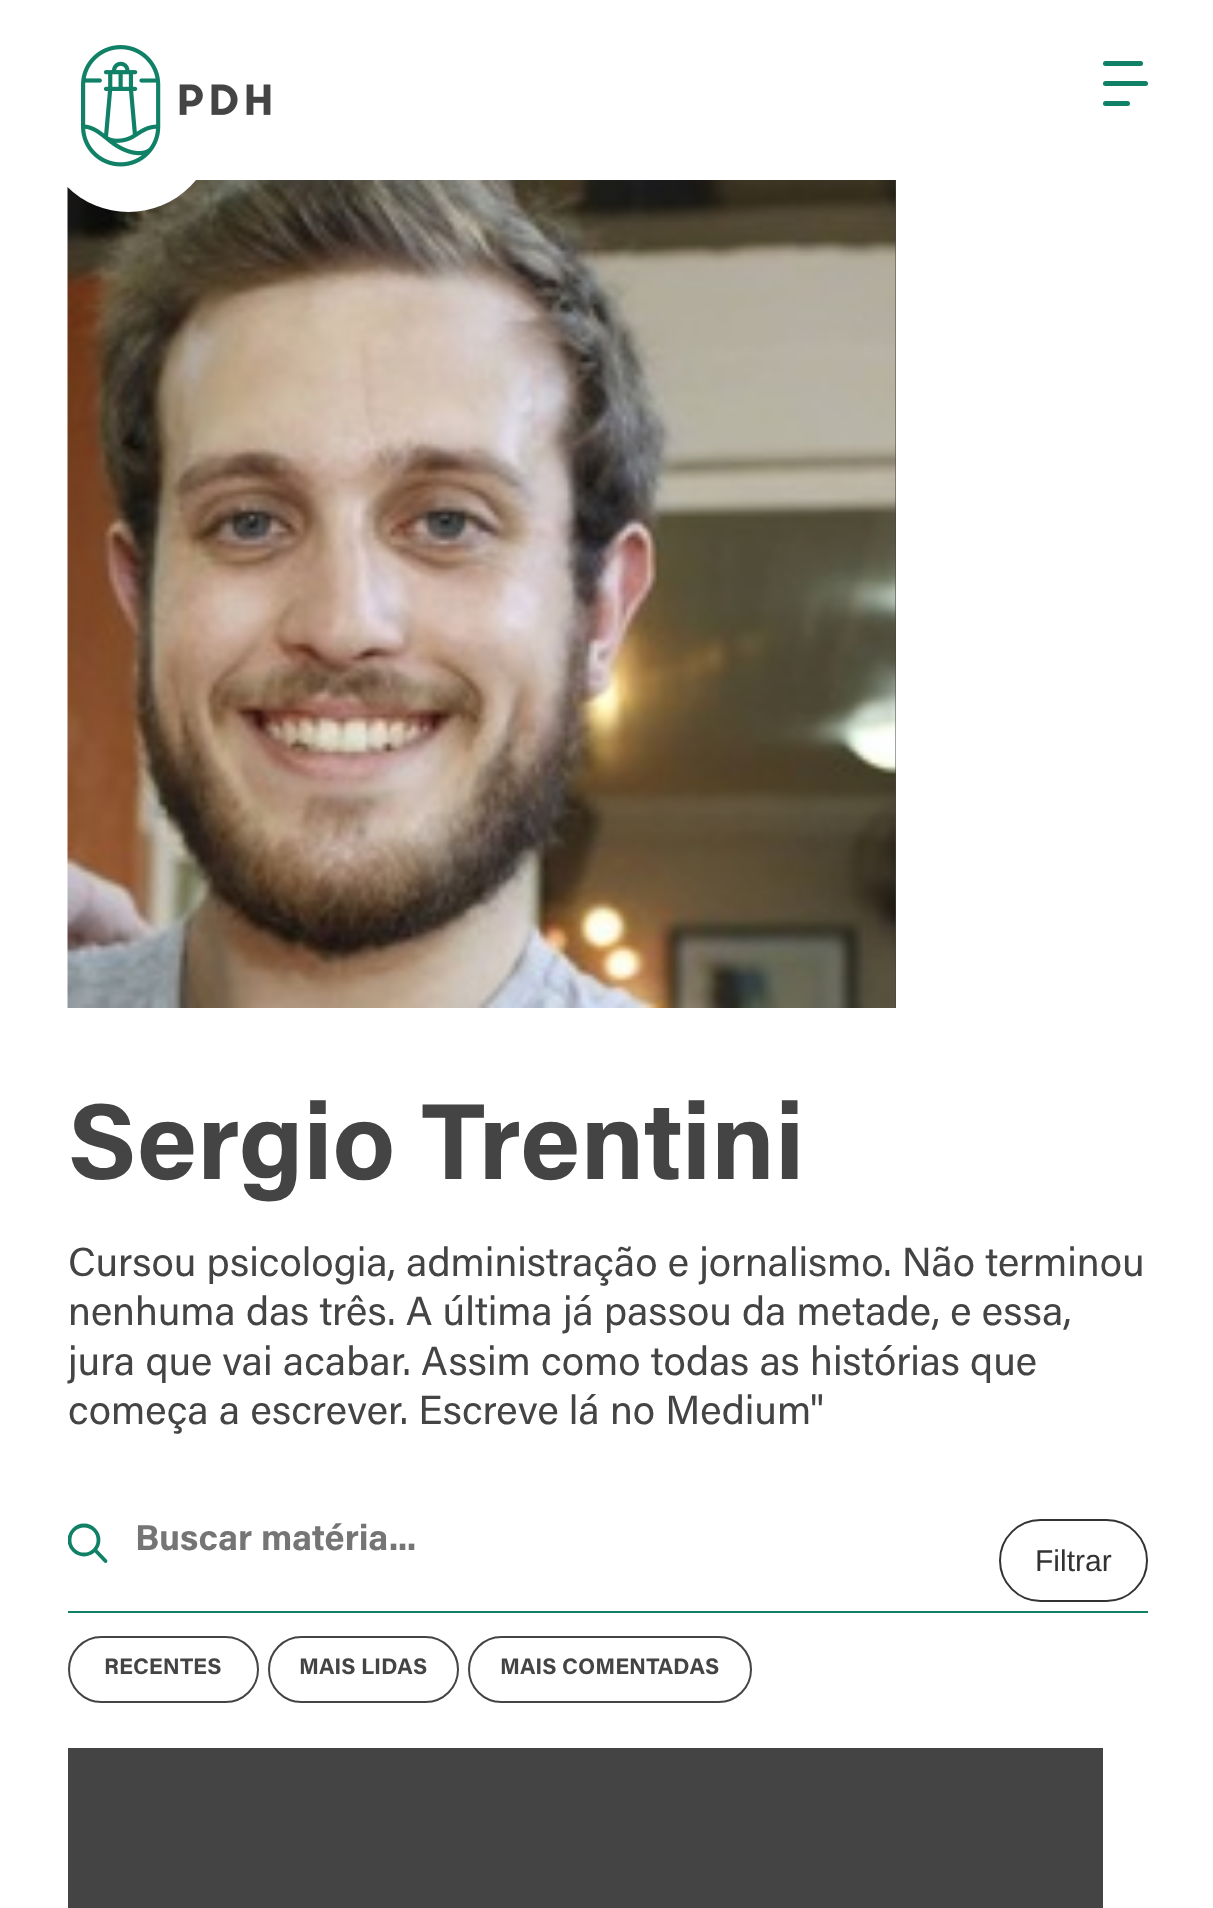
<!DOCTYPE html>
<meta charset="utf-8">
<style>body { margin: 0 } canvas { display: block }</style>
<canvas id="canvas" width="1213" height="1908"></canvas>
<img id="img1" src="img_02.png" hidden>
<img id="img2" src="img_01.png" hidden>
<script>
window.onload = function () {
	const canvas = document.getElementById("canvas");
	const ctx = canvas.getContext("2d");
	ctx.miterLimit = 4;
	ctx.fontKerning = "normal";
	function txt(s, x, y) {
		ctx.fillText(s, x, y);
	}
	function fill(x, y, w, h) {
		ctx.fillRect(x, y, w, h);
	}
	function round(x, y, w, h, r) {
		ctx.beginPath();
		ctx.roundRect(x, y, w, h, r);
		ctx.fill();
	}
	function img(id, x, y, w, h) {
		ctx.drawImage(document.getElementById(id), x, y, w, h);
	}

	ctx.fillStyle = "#FFFFFF";
	fill(0, 0, 1213, 1908);
	ctx.fillStyle = "#444444";
	fill(895, 180, 1, 828);
	img("img1", 67, 180, 829, 828);
	ctx.fillStyle = "#FFFFFF";
	round(41, 36, 175, 176, 87.5);
	img("img2", 81, 45, 190, 122);
	ctx.fillStyle = "#108066";
	round(1103, 61, 40, 5, 2.5);
	round(1103, 81, 45, 5, 2.5);
	round(1103, 101, 27, 5, 2.5);
	fill(68, 1611, 1080, 2);
	ctx.save();
	ctx.beginPath();
	ctx.rect(68, 1523, 40, 41);
	ctx.clip();
	ctx.beginPath();
	ctx.arc(84, 1540, 14.5, 0, Math.PI * 2);
	ctx.strokeStyle = "#108066";
	ctx.lineWidth = 3.8;
	ctx.stroke();
	ctx.restore();
	ctx.beginPath();
	ctx.moveTo(95.5, 1550.5);
	ctx.lineTo(105.5, 1561);
	ctx.strokeStyle = "#108066";
	ctx.lineWidth = 3.8;
	ctx.lineCap = "round";
	ctx.stroke();
	ctx.beginPath();
	ctx.roundRect(1000, 1520, 147, 81, 40.5);
	ctx.strokeStyle = "#333333";
	ctx.lineWidth = 2;
	ctx.stroke();
	ctx.beginPath();
	ctx.roundRect(69, 1637, 189, 65, 32.5);
	ctx.strokeStyle = "#444444";
	ctx.stroke();
	ctx.beginPath();
	ctx.roundRect(269, 1637, 189, 65, 32.5);
	ctx.stroke();
	ctx.beginPath();
	ctx.roundRect(469, 1637, 282, 65, 32.5);
	ctx.stroke();
	ctx.fillStyle = "#444444";
	fill(68, 1748, 1035, 160);
	ctx.font = "bold 108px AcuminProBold";
	txt("Sergio Trentini", 68, 1179);
	ctx.font = "40.5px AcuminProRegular";
	txt("Cursou psicologia, administração e jornalismo. Não terminou", 68, 1276);
	txt("nenhuma das três. A última já passou da metade, e essa,", 68, 1325);
	txt("jura que vai acabar. Assim como todas as histórias que", 68, 1375);
	txt("começa a escrever. Escreve lá no Medium", 68, 1424);
	txt("\"", 810, 1424);
	ctx.font = "bold 36px AcuminProBold";
	ctx.fillStyle = "#757575";
	txt("Buscar matéria...", 135, 1550);
	ctx.font = "30px Liberation Sans";
	ctx.fillStyle = "#333333";
	txt("Filtrar", 1035, 1571);
	ctx.font = "bold 22.5px AcuminProBold";
	ctx.fillStyle = "#444444";
	txt("RECENTES", 104, 1674);
	txt("MAIS LIDAS", 299, 1674);
	txt("MAIS COMENTADAS", 500, 1674);
};
</script>
